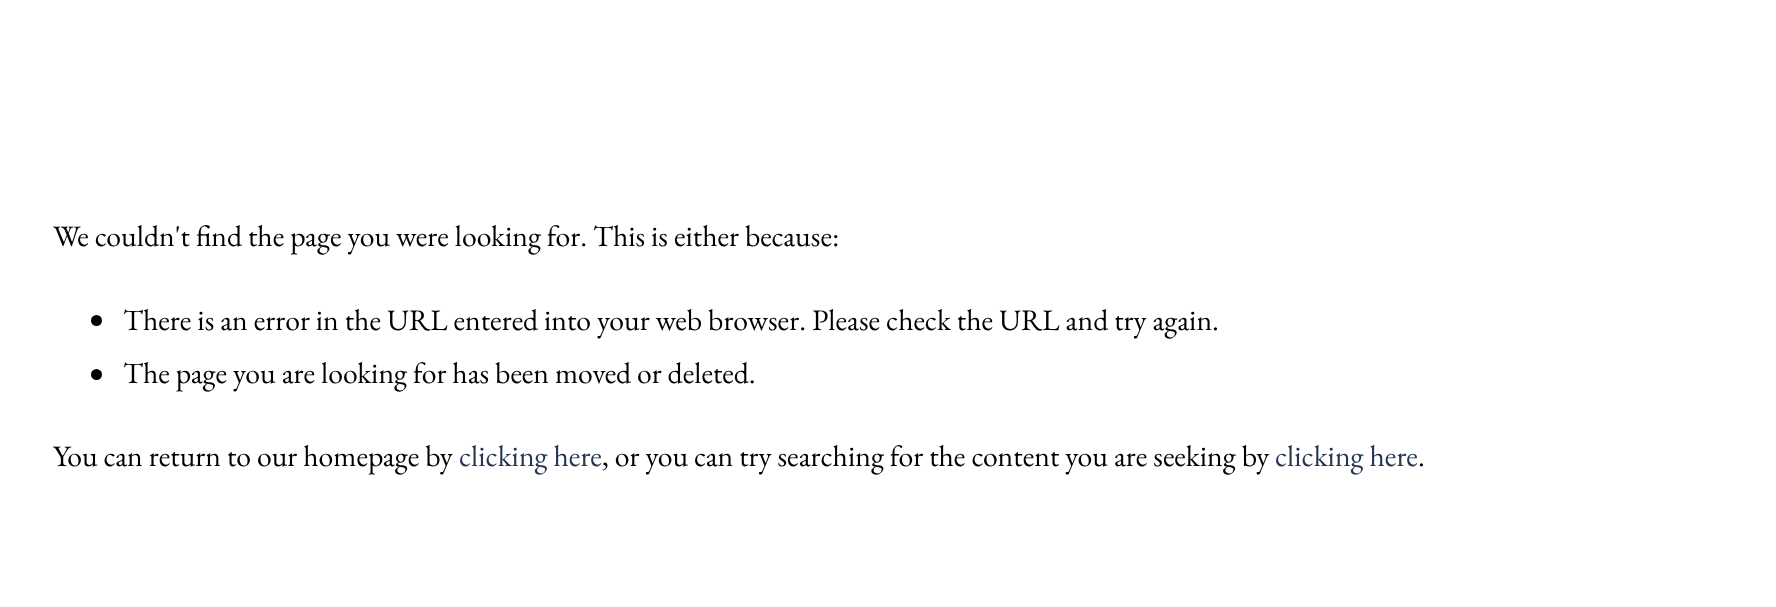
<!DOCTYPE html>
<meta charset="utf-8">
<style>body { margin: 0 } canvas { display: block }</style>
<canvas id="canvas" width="1776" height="607"></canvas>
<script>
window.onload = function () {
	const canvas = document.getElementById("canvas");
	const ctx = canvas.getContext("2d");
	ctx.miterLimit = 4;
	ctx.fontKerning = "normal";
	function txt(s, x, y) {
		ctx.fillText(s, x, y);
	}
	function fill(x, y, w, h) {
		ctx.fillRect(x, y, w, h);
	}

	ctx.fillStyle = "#FFFFFF";
	fill(0, 0, 1776, 607);
	ctx.fillStyle = "#000000";
	ctx.beginPath();
	ctx.arc(96.5, 320.5, 5.5, 0, Math.PI * 2);
	ctx.fill();
	ctx.beginPath();
	ctx.arc(96.5, 374.5, 5.5, 0, Math.PI * 2);
	ctx.fill();
	ctx.font = "29.75px EB Garamond";
	txt("We couldn't find the page you were looking for. This is either because:", 53, 246);
	txt("There is an error in the URL entered into your web browser. Please check the URL and try again.", 123, 330);
	txt("The page you are looking for has been moved or deleted.", 123, 383);
	txt("You can return to our homepage by", 53, 466);
	ctx.fillStyle = "#253551";
	txt("clicking here", 459, 466);
	ctx.fillStyle = "#000000";
	txt(", or you can try searching for the content you are seeking by", 602, 466);
	ctx.fillStyle = "#253551";
	txt("clicking here", 1275, 466);
	ctx.fillStyle = "#000000";
	txt(".", 1418, 466);
};
</script>
